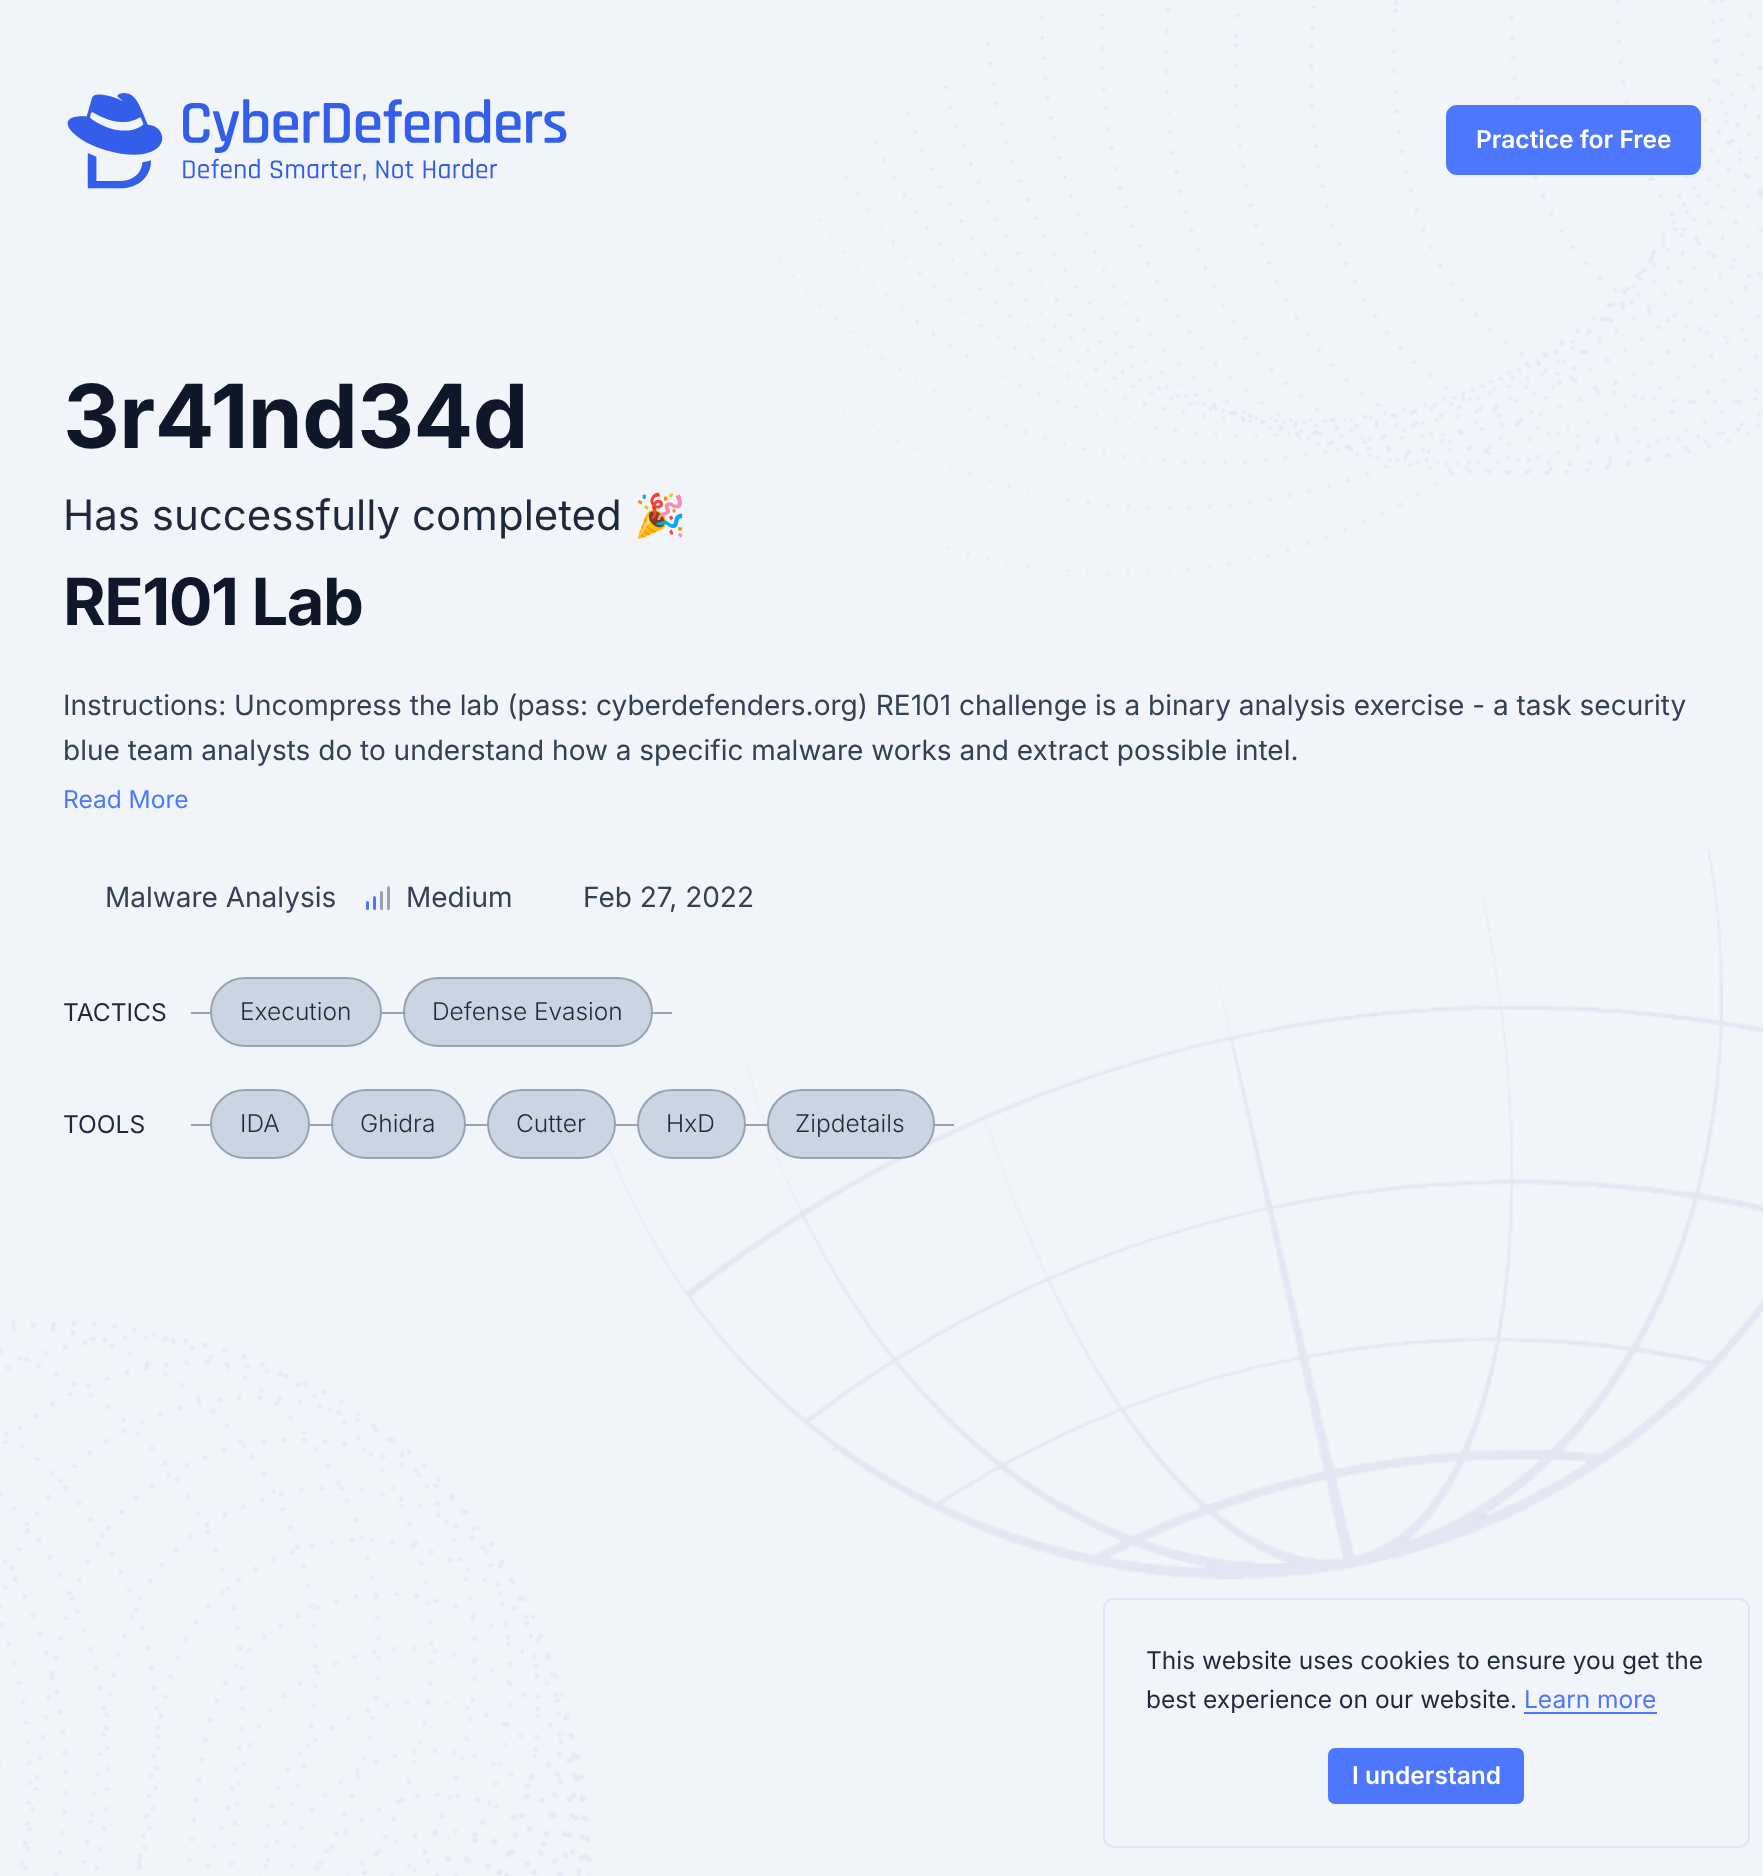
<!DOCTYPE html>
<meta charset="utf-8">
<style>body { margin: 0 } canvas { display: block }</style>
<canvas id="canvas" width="1763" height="1876"></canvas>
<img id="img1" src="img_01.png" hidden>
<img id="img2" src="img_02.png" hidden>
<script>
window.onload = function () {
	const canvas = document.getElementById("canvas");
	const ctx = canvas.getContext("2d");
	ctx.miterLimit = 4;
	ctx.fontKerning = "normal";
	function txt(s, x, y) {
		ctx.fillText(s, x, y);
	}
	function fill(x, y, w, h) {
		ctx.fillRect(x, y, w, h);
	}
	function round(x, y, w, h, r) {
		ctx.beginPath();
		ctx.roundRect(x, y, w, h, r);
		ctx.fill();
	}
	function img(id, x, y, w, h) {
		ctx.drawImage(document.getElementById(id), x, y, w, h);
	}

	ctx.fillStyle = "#F1F5F9";
	fill(0, 0, 1763, 1876);
	img("img1", 0, 0, 1763, 1876);
	img("img2", 67, 93, 500, 96);
	ctx.fillStyle = "#4D77FF";
	ctx.beginPath();
	ctx.roundRect(1447, 106, 253, 68, 10);
	ctx.fill();
	ctx.strokeStyle = "#4D77FF";
	ctx.lineWidth = 2;
	ctx.stroke();
	round(366, 901, 3, 9, 1.5);
	round(373, 896, 3, 14, 1.5);
	ctx.fillStyle = "#94A3B8";
	round(380, 891, 3, 19, 1.5);
	round(387, 886, 3, 24, 1.5);
	fill(191, 1012, 481, 2);
	ctx.fillStyle = "#CBD5E1";
	ctx.beginPath();
	ctx.roundRect(211, 978, 170, 68, 34);
	ctx.fill();
	ctx.strokeStyle = "#94A3B8";
	ctx.stroke();
	ctx.beginPath();
	ctx.roundRect(404, 978, 248, 68, 34);
	ctx.fill();
	ctx.stroke();
	ctx.fillStyle = "#94A3B8";
	fill(191, 1124, 763, 2);
	ctx.fillStyle = "#CBD5E1";
	ctx.beginPath();
	ctx.roundRect(211, 1090, 98, 68, 34);
	ctx.fill();
	ctx.stroke();
	ctx.beginPath();
	ctx.roundRect(332, 1090, 133, 68, 34);
	ctx.fill();
	ctx.stroke();
	ctx.beginPath();
	ctx.roundRect(488, 1090, 127, 68, 34);
	ctx.fill();
	ctx.stroke();
	ctx.beginPath();
	ctx.roundRect(638, 1090, 107, 68, 34);
	ctx.fill();
	ctx.stroke();
	ctx.beginPath();
	ctx.roundRect(768, 1090, 166, 68, 34);
	ctx.fill();
	ctx.stroke();
	ctx.beginPath();
	ctx.roundRect(1104, 1599, 645, 248, 10);
	ctx.strokeStyle = "#DDE5FA";
	ctx.stroke();
	ctx.fillStyle = "#4D77FF";
	fill(1524, 1712, 133, 2);
	ctx.beginPath();
	ctx.roundRect(1329, 1749, 194, 54, 6);
	ctx.fill();
	ctx.strokeStyle = "#4D77FF";
	ctx.stroke();
	ctx.font = "600 24.5px Inter";
	ctx.fillStyle = "#FFFFFF";
	txt("Practice for Free", 1476, 148);
	ctx.letterSpacing = "-0.6px";
	ctx.font = "bold 88.25px Inter";
	ctx.fillStyle = "#0F172A";
	txt("3r41nd34d", 63, 448);
	ctx.letterSpacing = "0px";
	ctx.font = "42px Inter";
	ctx.fillStyle = "#1E293B";
	txt("Has successfully completed", 63, 530);
	ctx.font = "42px Noto Color Emoji";
	txt("🎉", 634, 530);
	ctx.letterSpacing = "-1.5px";
	ctx.font = "bold 65px Inter";
	ctx.fillStyle = "#0F172A";
	txt("RE101 Lab", 63, 625);
	ctx.letterSpacing = "0px";
	ctx.font = "28px Inter";
	ctx.fillStyle = "#334155";
	txt("Instructions: Uncompress the lab (pass: cyberdefenders.org) RE101 challenge is a binary analysis exercise - a task security", 63, 715);
	txt("blue team analysts do to understand how a specific malware works and extract possible intel.", 63, 760);
	ctx.font = "24.5px Inter";
	ctx.fillStyle = "#4D77FF";
	txt("Read More", 63, 808);
	ctx.font = "28px Inter";
	ctx.fillStyle = "#334155";
	txt("Malware Analysis", 105, 907);
	txt("Medium", 406, 907);
	txt("Feb 27, 2022", 583, 907);
	ctx.font = "24.5px Inter";
	ctx.fillStyle = "#1E293B";
	txt("TACTICS", 63, 1021);
	ctx.font = "300 24.5px Inter";
	txt("Execution", 240, 1020);
	txt("Defense Evasion", 432, 1020);
	ctx.font = "24.5px Inter";
	txt("TOOLS", 63, 1133);
	ctx.font = "300 24.5px Inter";
	txt("IDA", 240, 1132);
	txt("Ghidra", 360, 1132);
	txt("Cutter", 516, 1132);
	txt("HxD", 666, 1132);
	txt("Zipdetails", 795, 1132);
	ctx.font = "24.5px Inter";
	txt("This website uses cookies to ensure you get the", 1146, 1669);
	txt("best experience on our website.", 1146, 1708);
	ctx.fillStyle = "#4D77FF";
	txt("Learn more", 1524, 1708);
	ctx.font = "600 24.5px Inter";
	ctx.fillStyle = "#FFFFFF";
	txt("I understand", 1352, 1784);
};
</script>
